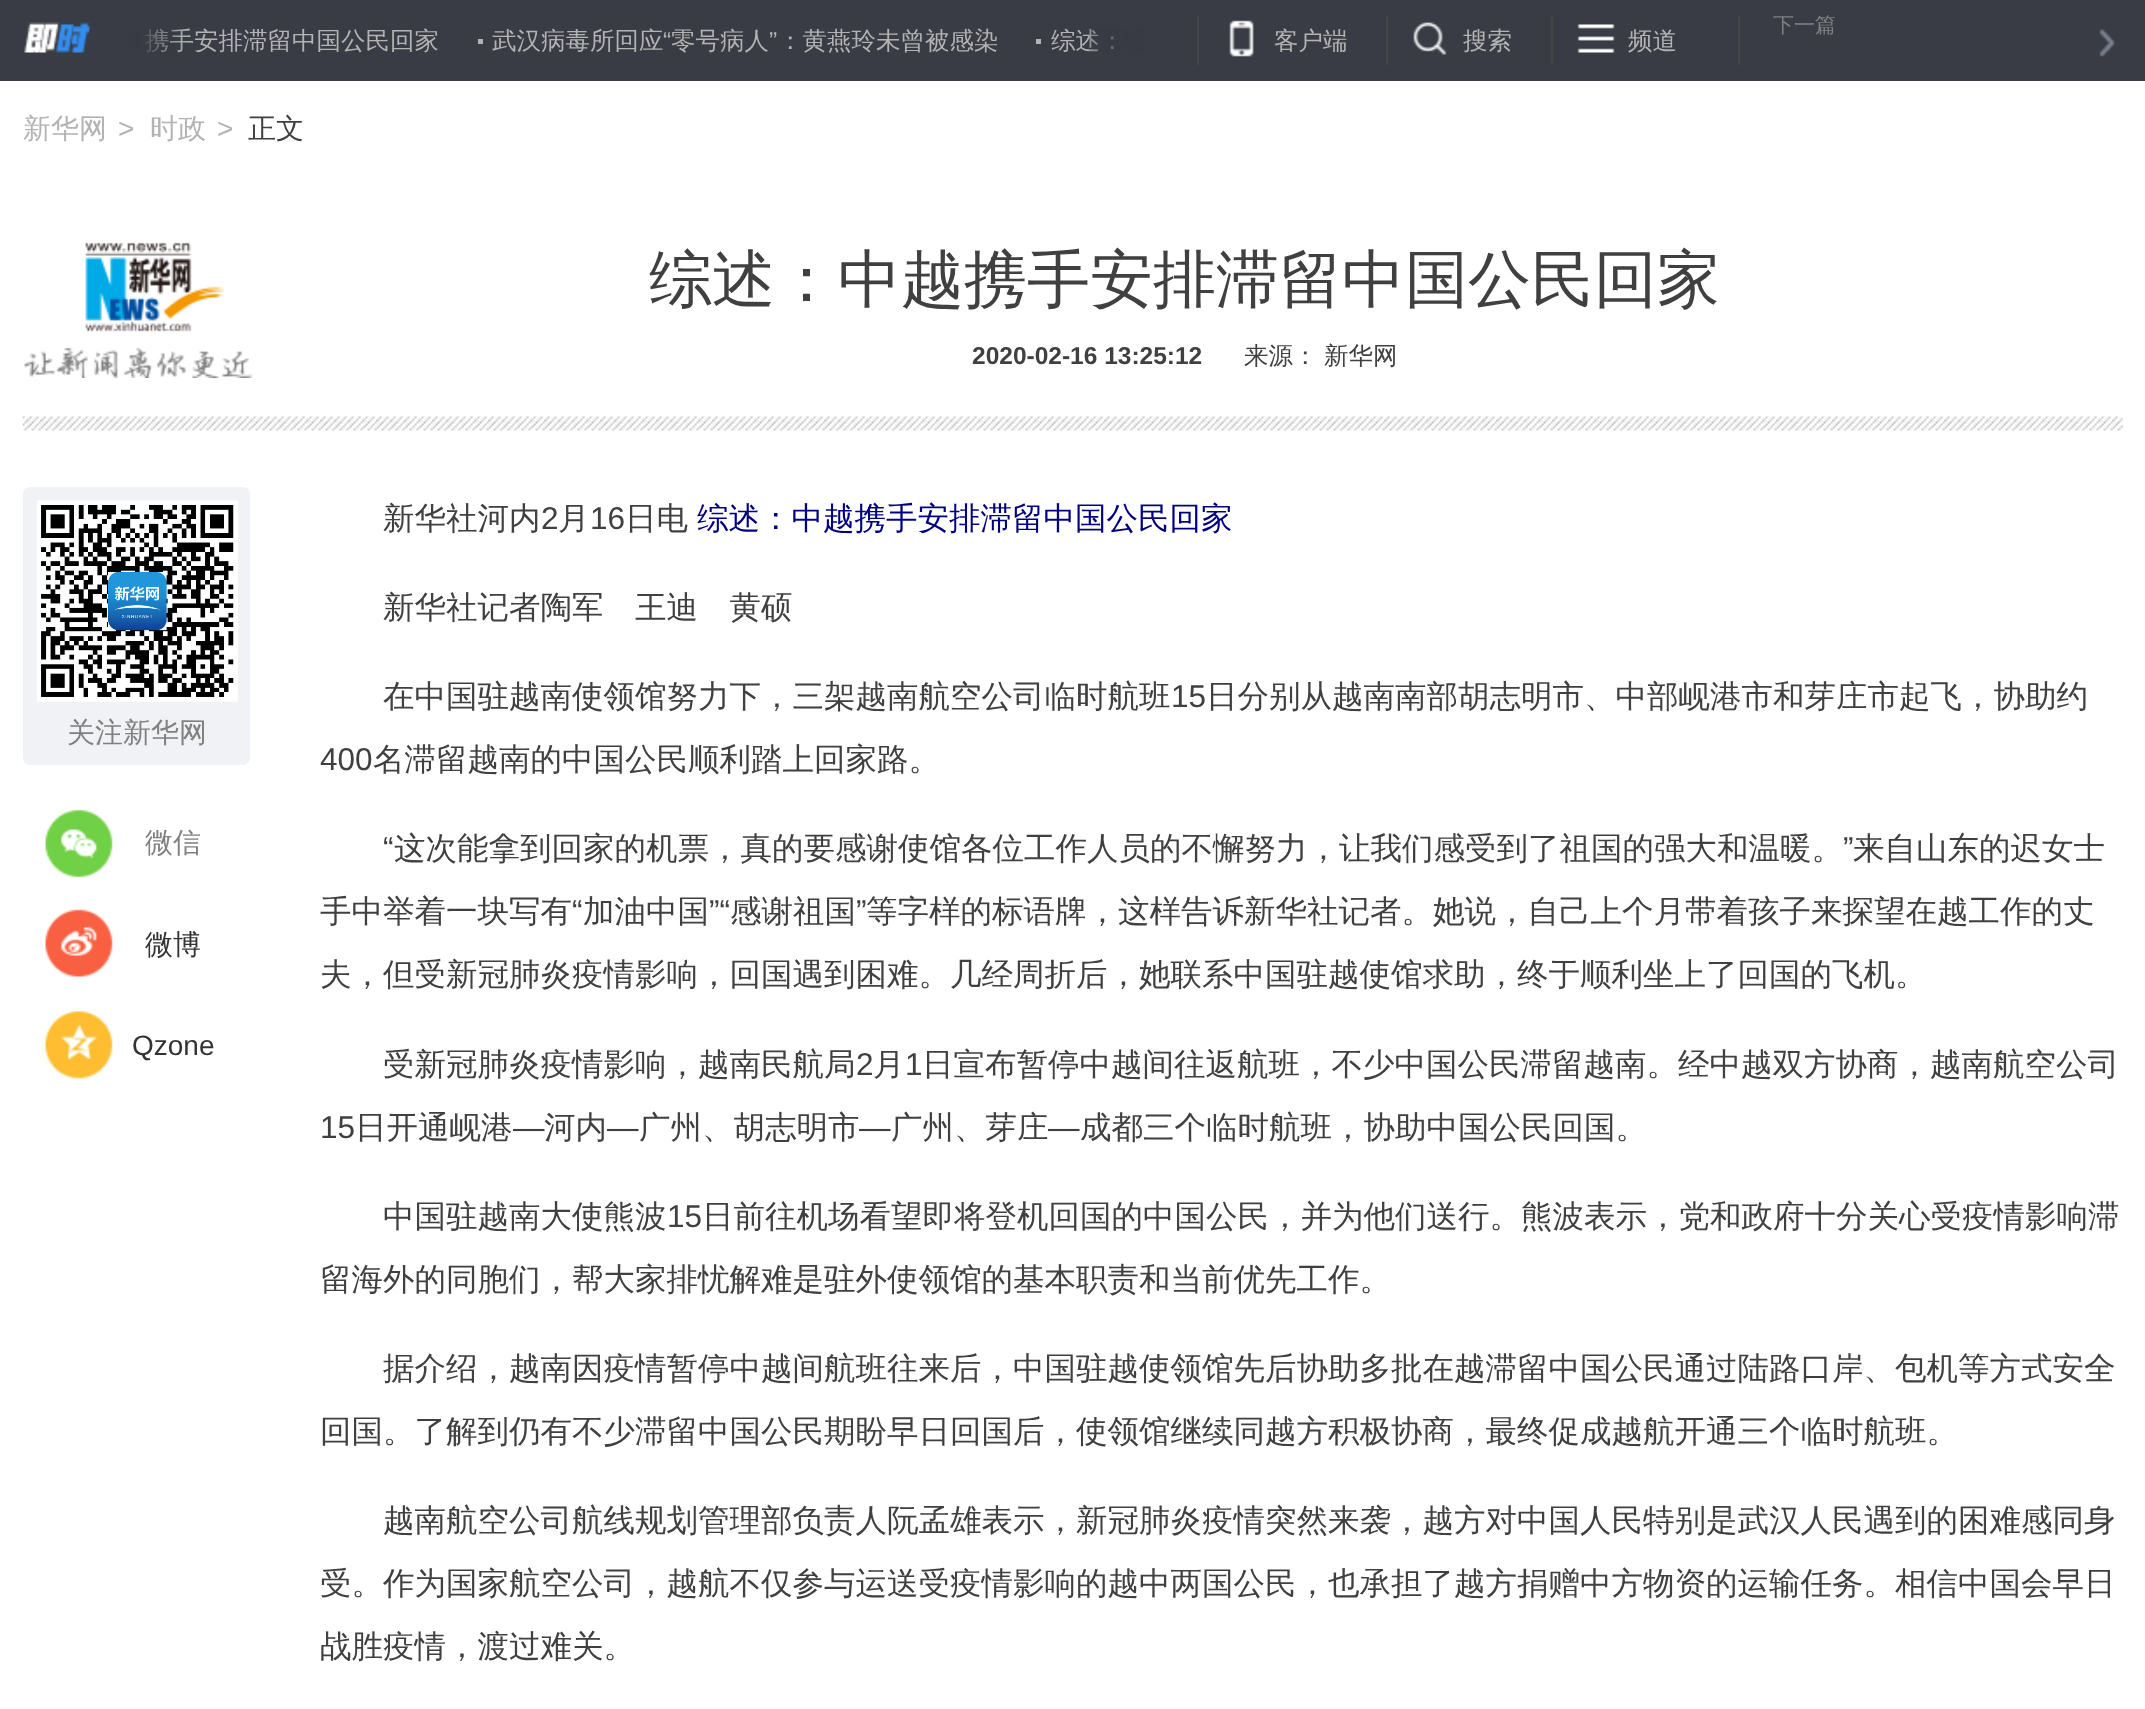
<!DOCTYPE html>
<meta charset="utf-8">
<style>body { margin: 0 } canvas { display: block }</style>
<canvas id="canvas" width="2145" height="1709"></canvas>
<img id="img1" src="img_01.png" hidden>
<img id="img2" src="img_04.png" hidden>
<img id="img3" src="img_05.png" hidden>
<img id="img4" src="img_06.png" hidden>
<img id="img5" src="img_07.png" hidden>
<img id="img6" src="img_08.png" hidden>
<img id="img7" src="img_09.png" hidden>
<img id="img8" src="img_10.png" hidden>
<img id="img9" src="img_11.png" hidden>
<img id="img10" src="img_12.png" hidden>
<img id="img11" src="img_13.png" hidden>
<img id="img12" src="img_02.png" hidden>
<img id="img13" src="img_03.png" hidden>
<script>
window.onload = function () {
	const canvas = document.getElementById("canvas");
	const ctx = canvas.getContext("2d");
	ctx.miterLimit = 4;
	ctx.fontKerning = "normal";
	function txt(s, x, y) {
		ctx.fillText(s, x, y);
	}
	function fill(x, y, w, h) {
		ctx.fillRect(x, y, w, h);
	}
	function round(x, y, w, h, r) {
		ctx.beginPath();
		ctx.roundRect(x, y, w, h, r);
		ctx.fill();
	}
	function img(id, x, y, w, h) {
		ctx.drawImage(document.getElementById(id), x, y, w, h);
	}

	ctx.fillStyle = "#FFFFFF";
	fill(0, 0, 2145, 1709);
	ctx.fillStyle = "#393C44";
	fill(0, 0, 2145, 81);
	img("img1", 24, 22, 68, 31);
	ctx.fillStyle = "#B3B3B3";
	fill(478, 39, 5, 5);
	fill(1036, 39, 5, 5);
	ctx.fillStyle = "#464646";
	fill(1197, 16, 2, 49);
	img("img2", 1229, 20, 25, 37);
	fill(1386, 16, 2, 49);
	img("img3", 1413, 22, 34, 33);
	fill(1551, 16, 2, 49);
	img("img4", 1577, 24, 38, 29);
	fill(1738, 16, 2, 49);
	img("img5", 2099, 29, 16, 28);
	img("img6", 22, 416, 2101, 15);
	img("img7", 24, 242, 229, 136);
	ctx.fillStyle = "#F0F2F5";
	round(23, 487, 227, 278, 7);
	img("img8", 37, 500, 201, 202);
	img("img9", 45, 809, 68, 69);
	img("img10", 45, 909, 68, 68);
	img("img11", 45, 1011, 68, 68);
	ctx.font = "500 24.5px WenQuanYi Zen Hei";
	ctx.fillStyle = "#B3B3B3";
	txt("携手安排滞留中国公民回家", 145, 49);
	img("img12", 97, 28, 90, 25);
	txt("武汉病毒所回应", 492, 49);
	ctx.font = "24.5px Liberation Sans";
	txt("“", 663, 49);
	ctx.font = "500 24.5px WenQuanYi Zen Hei";
	txt("零号病人", 671, 49);
	ctx.font = "24.5px Liberation Sans";
	txt("”", 769, 49);
	ctx.font = "500 24.5px WenQuanYi Zen Hei";
	txt("：黄燕玲未曾被感染", 778, 49);
	ctx.wordSpacing = "-1px";
	txt("综述：", 1051, 49);
	img("img13", 1089, 28, 106, 25);
	ctx.wordSpacing = "0px";
	txt("客户端", 1274, 49);
	txt("搜索", 1463, 49);
	txt("频道", 1628, 49);
	ctx.font = "500 21px WenQuanYi Zen Hei";
	ctx.fillStyle = "#808080";
	txt("下一篇", 1773, 32);
	ctx.font = "500 28px WenQuanYi Zen Hei";
	ctx.fillStyle = "#B3B3B3";
	txt("新华网", 23, 138);
	ctx.font = "28px Liberation Sans";
	txt(">", 118, 138);
	ctx.font = "500 28px WenQuanYi Zen Hei";
	txt("时政", 150, 138);
	ctx.font = "28px Liberation Sans";
	txt(">", 217, 138);
	ctx.font = "500 28px WenQuanYi Zen Hei";
	ctx.fillStyle = "#404040";
	txt("正文", 248, 138);
	ctx.font = "500 63px WenQuanYi Zen Hei";
	txt("综述：中越携手安排滞留中国公民回家", 649, 301);
	ctx.font = "bold 24.5px Liberation Sans";
	txt("2020-02-16 13:25:12", 972, 364);
	ctx.font = "500 24.5px WenQuanYi Zen Hei";
	txt("来源：", 1244, 364);
	txt("新华网", 1324, 364);
	ctx.font = "500 28px WenQuanYi Zen Hei";
	ctx.fillStyle = "#808080";
	txt("关注新华网", 67, 742);
	txt("微信", 145, 852);
	ctx.fillStyle = "#333333";
	txt("微博", 145, 954);
	ctx.font = "28px Liberation Sans";
	txt("Qzone", 132, 1055);
	ctx.font = "500 31.5px WenQuanYi Zen Hei";
	ctx.fillStyle = "#404040";
	txt("新华社河内", 383, 529);
	ctx.font = "31.5px Liberation Sans";
	txt("2", 541, 529);
	ctx.font = "500 31.5px WenQuanYi Zen Hei";
	txt("月", 558, 529);
	ctx.font = "31.5px Liberation Sans";
	txt("16", 590, 529);
	ctx.font = "500 31.5px WenQuanYi Zen Hei";
	txt("日电", 625, 529);
	ctx.fillStyle = "#000080";
	txt("综述：中越携手安排滞留中国公民回家", 697, 529);
	ctx.fillStyle = "#404040";
	txt("新华社记者陶军　王迪　黄硕", 383, 618);
	txt("在中国驻越南使领馆努力下，三架越南航空公司临时航班", 383, 707);
	ctx.font = "31.5px Liberation Sans";
	txt("15", 1171, 707);
	ctx.font = "500 31.5px WenQuanYi Zen Hei";
	txt("日分别从越南南部胡志明市、中部岘港市和芽庄市起飞，协助约", 1206, 707);
	ctx.font = "31.5px Liberation Sans";
	txt("400", 320, 770);
	ctx.font = "500 31.5px WenQuanYi Zen Hei";
	txt("名滞留越南的中国公民顺利踏上回家路。", 373, 770);
	ctx.font = "31.5px Liberation Sans";
	txt("“", 383, 859);
	ctx.font = "500 31.5px WenQuanYi Zen Hei";
	txt("这次能拿到回家的机票，真的要感谢使馆各位工作人员的不懈努力，让我们感受到了祖国的强大和温暖。", 394, 859);
	ctx.font = "31.5px Liberation Sans";
	txt("”", 1843, 859);
	ctx.font = "500 31.5px WenQuanYi Zen Hei";
	txt("来自山东的迟女士", 1853, 859);
	txt("手中举着一块写有", 320, 922);
	ctx.font = "31.5px Liberation Sans";
	txt("“", 572, 922);
	ctx.font = "500 31.5px WenQuanYi Zen Hei";
	txt("加油中国", 583, 922);
	ctx.font = "31.5px Liberation Sans";
	txt("”“", 709, 922);
	ctx.font = "500 31.5px WenQuanYi Zen Hei";
	txt("感谢祖国", 730, 922);
	ctx.font = "31.5px Liberation Sans";
	txt("”", 856, 922);
	ctx.font = "500 31.5px WenQuanYi Zen Hei";
	txt("等字样的标语牌，这样告诉新华社记者。她说，自己上个月带着孩子来探望在越工作的丈", 866, 922);
	txt("夫，但受新冠肺炎疫情影响，回国遇到困难。几经周折后，她联系中国驻越使馆求助，终于顺利坐上了回国的飞机。", 320, 985);
	txt("受新冠肺炎疫情影响，越南民航局", 383, 1075);
	ctx.font = "31.5px Liberation Sans";
	txt("2", 856, 1075);
	ctx.font = "500 31.5px WenQuanYi Zen Hei";
	txt("月", 873, 1075);
	ctx.font = "31.5px Liberation Sans";
	txt("1", 905, 1075);
	ctx.font = "500 31.5px WenQuanYi Zen Hei";
	txt("日宣布暂停中越间往返航班，不少中国公民滞留越南。经中越双方协商，越南航空公司", 922, 1075);
	ctx.font = "31.5px Liberation Sans";
	txt("15", 320, 1138);
	ctx.font = "500 31.5px WenQuanYi Zen Hei";
	txt("日开通岘港", 355, 1138);
	ctx.font = "31.5px Liberation Sans";
	txt("—", 513, 1138);
	ctx.font = "500 31.5px WenQuanYi Zen Hei";
	txt("河内", 544, 1138);
	ctx.font = "31.5px Liberation Sans";
	txt("—", 607, 1138);
	ctx.font = "500 31.5px WenQuanYi Zen Hei";
	txt("广州、胡志明市", 639, 1138);
	ctx.font = "31.5px Liberation Sans";
	txt("—", 859, 1138);
	ctx.font = "500 31.5px WenQuanYi Zen Hei";
	txt("广州、芽庄", 891, 1138);
	ctx.font = "31.5px Liberation Sans";
	txt("—", 1048, 1138);
	ctx.font = "500 31.5px WenQuanYi Zen Hei";
	txt("成都三个临时航班，协助中国公民回国。", 1080, 1138);
	txt("中国驻越南大使熊波", 383, 1227);
	ctx.font = "31.5px Liberation Sans";
	txt("15", 667, 1227);
	ctx.font = "500 31.5px WenQuanYi Zen Hei";
	txt("日前往机场看望即将登机回国的中国公民，并为他们送行。熊波表示，党和政府十分关心受疫情影响滞", 702, 1227);
	txt("留海外的同胞们，帮大家排忧解难是驻外使领馆的基本职责和当前优先工作。", 320, 1290);
	txt("据介绍，越南因疫情暂停中越间航班往来后，中国驻越使领馆先后协助多批在越滞留中国公民通过陆路口岸、包机等方式安全", 383, 1379);
	txt("回国。了解到仍有不少滞留中国公民期盼早日回国后，使领馆继续同越方积极协商，最终促成越航开通三个临时航班。", 320, 1442);
	txt("越南航空公司航线规划管理部负责人阮孟雄表示，新冠肺炎疫情突然来袭，越方对中国人民特别是武汉人民遇到的困难感同身", 383, 1531);
	txt("受。作为国家航空公司，越航不仅参与运送受疫情影响的越中两国公民，也承担了越方捐赠中方物资的运输任务。相信中国会早日", 320, 1594);
	txt("战胜疫情，渡过难关。", 320, 1657);
};
</script>
